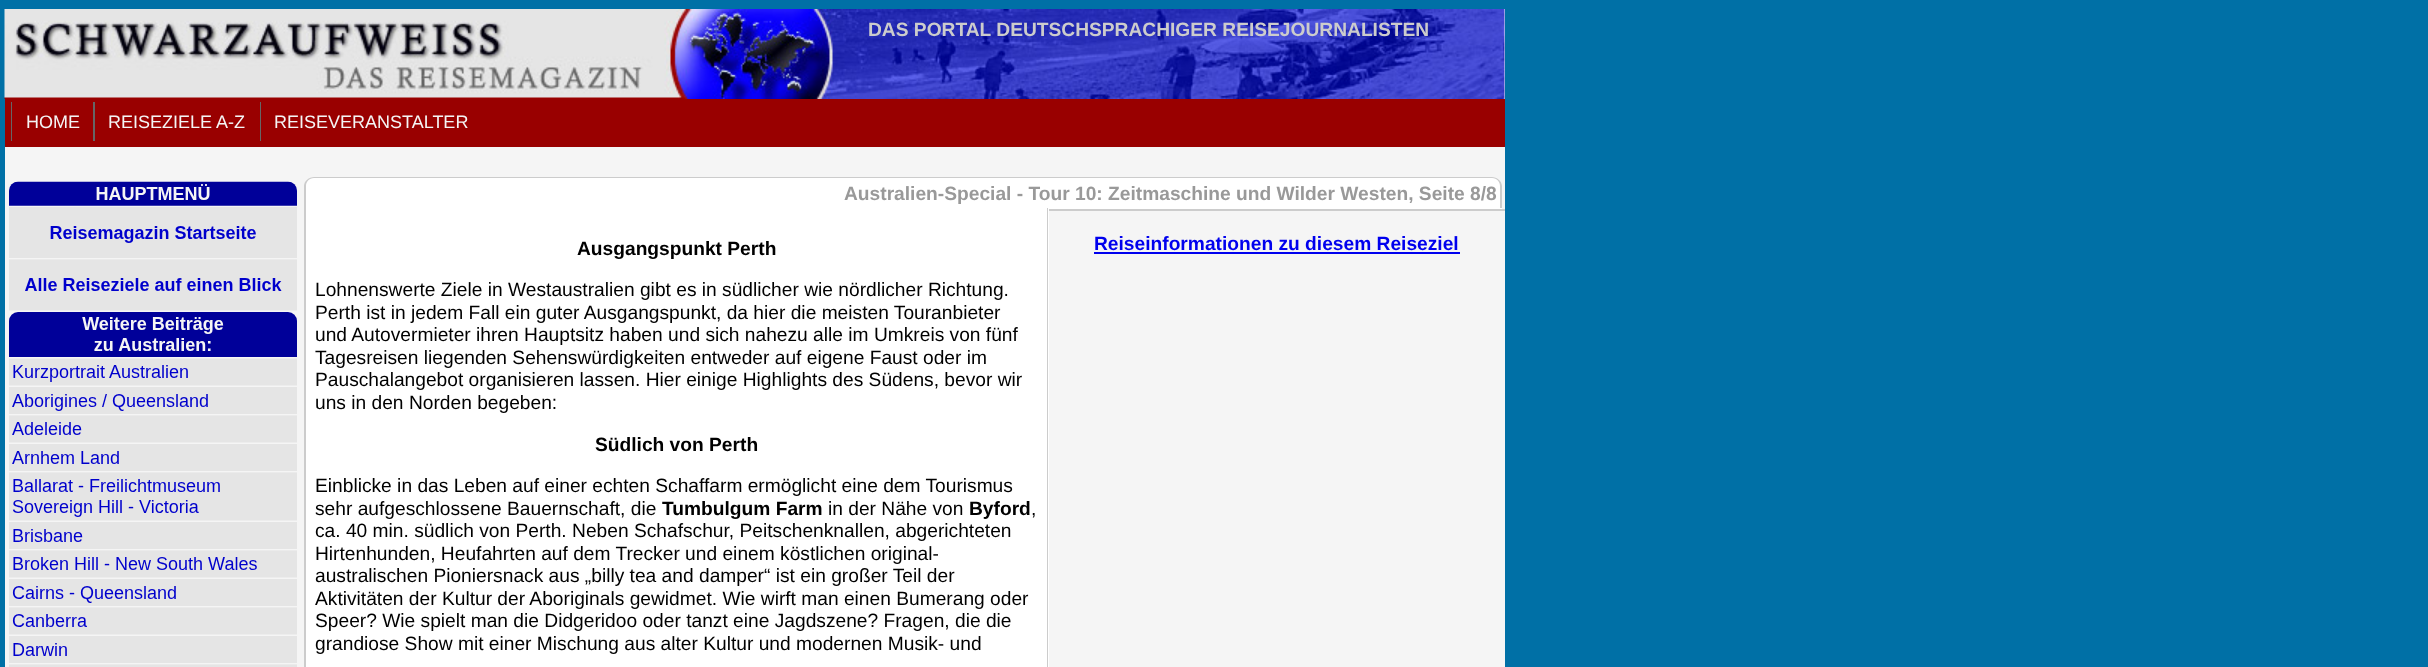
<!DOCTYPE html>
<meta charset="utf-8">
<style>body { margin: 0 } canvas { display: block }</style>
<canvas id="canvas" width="2428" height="667"></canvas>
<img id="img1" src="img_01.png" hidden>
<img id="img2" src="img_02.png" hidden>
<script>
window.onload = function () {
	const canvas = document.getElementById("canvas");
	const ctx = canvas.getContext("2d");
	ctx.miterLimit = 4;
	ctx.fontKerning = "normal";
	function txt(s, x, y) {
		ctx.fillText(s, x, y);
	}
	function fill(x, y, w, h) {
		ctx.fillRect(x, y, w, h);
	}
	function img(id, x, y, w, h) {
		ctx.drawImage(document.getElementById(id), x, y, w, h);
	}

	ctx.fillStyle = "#0070A6";
	fill(0, 0, 2428, 667);
	ctx.fillStyle = "#F5F5F5";
	fill(5, 9, 1500, 658);
	img("img1", 4, 9, 1501, 90);
	ctx.fillStyle = "#990000";
	fill(5, 99, 1500, 48);
	ctx.fillStyle = "#666666";
	fill(11, 102, 1, 39);
	fill(93, 102, 2, 39);
	fill(260, 102, 1, 39);
	img("img2", 9, 181, 288, 486);
	ctx.fillStyle = "#FFFFFF";
	ctx.beginPath();
	ctx.roundRect(305, 177, 1197, 32, [9, 9, 0, 0]);
	ctx.fill();
	ctx.fillStyle = "#CCCCCC";
	ctx.beginPath();
	ctx.moveTo(314, 177);
	ctx.lineTo(1492, 177);
	ctx.bezierCurveTo(1497, 177, 1502, 181, 1502, 186);
	ctx.lineTo(1502, 208);
	ctx.lineTo(304, 208);
	ctx.lineTo(304, 186);
	ctx.bezierCurveTo(304, 181, 309, 177, 314, 177);
	ctx.closePath();
	ctx.moveTo(314, 178);
	ctx.lineTo(1492, 178);
	ctx.bezierCurveTo(1497, 178, 1500, 182, 1500, 186);
	ctx.lineTo(1500, 208);
	ctx.lineTo(306, 208);
	ctx.lineTo(306, 186);
	ctx.bezierCurveTo(306, 182, 309, 178, 314, 178);
	ctx.closePath();
	ctx.fill("evenodd");
	ctx.fillStyle = "#FFFFFF";
	fill(306, 209, 743, 458);
	ctx.fillStyle = "#CCCCCC";
	ctx.beginPath();
	ctx.moveTo(304, 208);
	ctx.lineTo(1048, 208);
	ctx.lineTo(1048, 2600);
	ctx.bezierCurveTo(1048, 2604, 1044, 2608, 1040, 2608);
	ctx.lineTo(314, 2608);
	ctx.bezierCurveTo(309, 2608, 304, 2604, 304, 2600);
	ctx.closePath();
	ctx.moveTo(306, 208);
	ctx.lineTo(1047, 208);
	ctx.lineTo(1047, 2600);
	ctx.bezierCurveTo(1047, 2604, 1044, 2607, 1040, 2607);
	ctx.lineTo(314, 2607);
	ctx.bezierCurveTo(309, 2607, 306, 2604, 306, 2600);
	ctx.closePath();
	ctx.fill("evenodd");
	fill(1049, 209, 456, 2);
	ctx.fillStyle = "#0000EE";
	fill(1094, 252, 366, 2);
	ctx.font = "bold 19.2px Liberation Sans";
	ctx.fillStyle = "#CCCCCC";
	txt("DAS PORTAL DEUTSCHSPRACHIGER REISEJOURNALISTEN", 868, 36);
	ctx.font = "18px Liberation Sans";
	ctx.fillStyle = "#F5F5F5";
	txt("HOME", 26, 128);
	txt("REISEZIELE A-Z", 108, 128);
	txt("REISEVERANSTALTER", 274, 128);
	ctx.font = "bold 19.2px Liberation Sans";
	ctx.fillStyle = "#999999";
	txt("Australien-Special - Tour 10: Zeitmaschine und Wilder Westen, Seite 8/8", 844, 200);
	ctx.fillStyle = "#000000";
	txt("Ausgangspunkt Perth", 577, 255);
	ctx.font = "19.2px Liberation Sans";
	txt("Lohnenswerte Ziele in Westaustralien gibt es in südlicher wie nördlicher Richtung.", 315, 296);
	txt("Perth ist in jedem Fall ein guter Ausgangspunkt, da hier die meisten Touranbieter", 315, 319);
	txt("und Autovermieter ihren Hauptsitz haben und sich nahezu alle im Umkreis von fünf", 315, 341);
	txt("Tagesreisen liegenden Sehenswürdigkeiten entweder auf eigene Faust oder im", 315, 364);
	txt("Pauschalangebot organisieren lassen. Hier einige Highlights des Südens, bevor wir", 315, 386);
	txt("uns in den Norden begeben:", 315, 409);
	ctx.font = "bold 19.2px Liberation Sans";
	txt("Südlich von Perth", 595, 451);
	ctx.font = "19.2px Liberation Sans";
	txt("Einblicke in das Leben auf einer echten Schaffarm ermöglicht eine dem Tourismus", 315, 492);
	txt("sehr aufgeschlossene Bauernschaft, die", 315, 515);
	ctx.font = "bold 19.2px Liberation Sans";
	txt("Tumbulgum Farm", 662, 515);
	ctx.font = "19.2px Liberation Sans";
	txt("in der Nähe von", 828, 515);
	ctx.font = "bold 19.2px Liberation Sans";
	txt("Byford", 969, 515);
	ctx.font = "19.2px Liberation Sans";
	txt(",", 1031, 515);
	txt("ca. 40 min. südlich von Perth. Neben Schafschur, Peitschenknallen, abgerichteten", 315, 537);
	txt("Hirtenhunden, Heufahrten auf dem Trecker und einem köstlichen original-", 315, 560);
	txt("australischen Pioniersnack aus „billy tea and damper“ ist ein großer Teil der", 315, 582);
	txt("Aktivitäten der Kultur der Aboriginals gewidmet. Wie wirft man einen Bumerang oder", 315, 605);
	txt("Speer? Wie spielt man die Didgeridoo oder tanzt eine Jagdszene? Fragen, die die", 315, 627);
	txt("grandiose Show mit einer Mischung aus alter Kultur und modernen Musik- und", 315, 650);
	ctx.font = "bold 19.2px Liberation Sans";
	ctx.fillStyle = "#0000EE";
	txt("Reiseinformationen zu diesem Reiseziel", 1094, 250);
};
</script>
